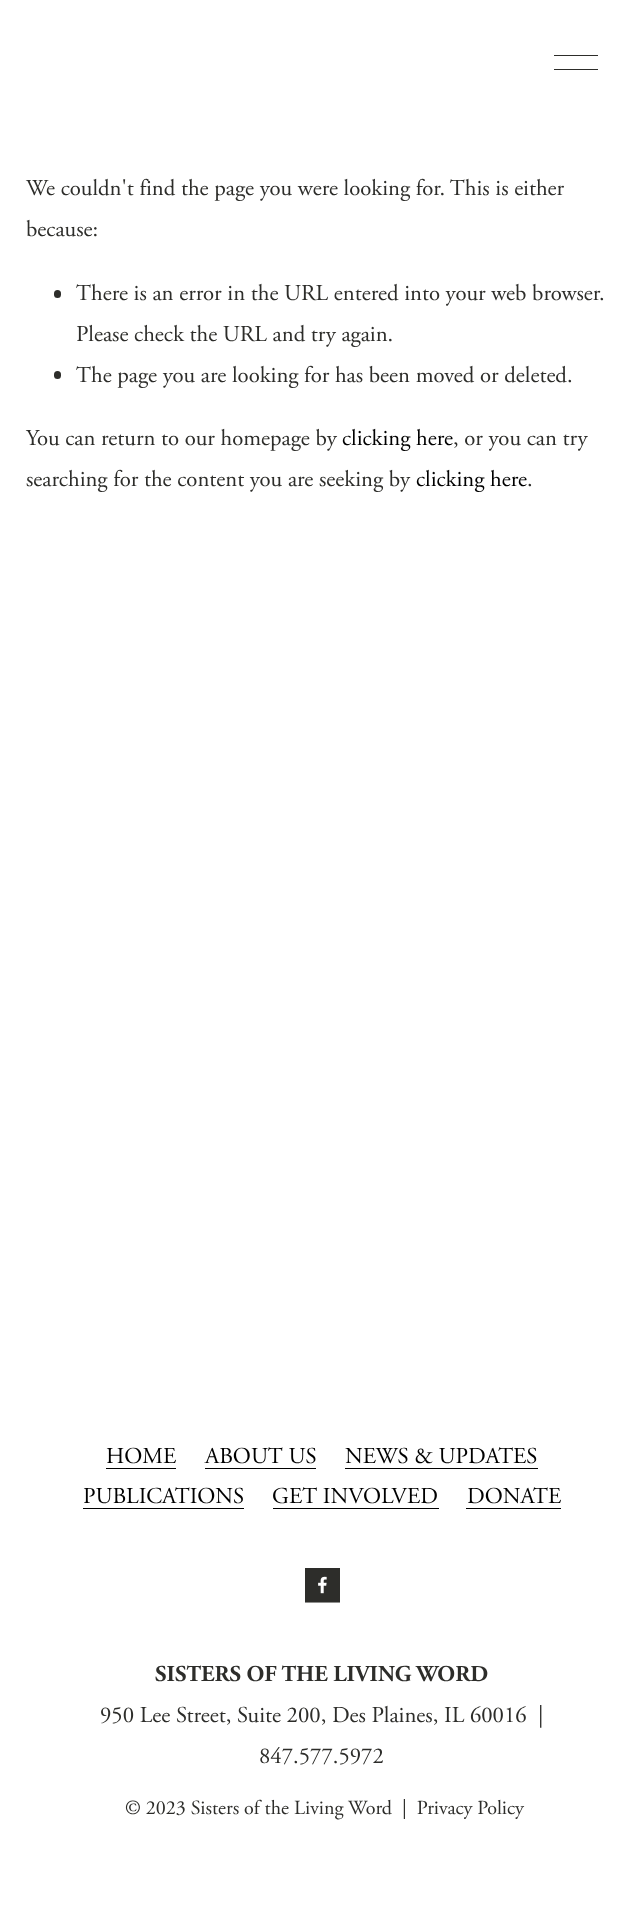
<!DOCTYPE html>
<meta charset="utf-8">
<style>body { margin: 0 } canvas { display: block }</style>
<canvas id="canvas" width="643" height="1928"></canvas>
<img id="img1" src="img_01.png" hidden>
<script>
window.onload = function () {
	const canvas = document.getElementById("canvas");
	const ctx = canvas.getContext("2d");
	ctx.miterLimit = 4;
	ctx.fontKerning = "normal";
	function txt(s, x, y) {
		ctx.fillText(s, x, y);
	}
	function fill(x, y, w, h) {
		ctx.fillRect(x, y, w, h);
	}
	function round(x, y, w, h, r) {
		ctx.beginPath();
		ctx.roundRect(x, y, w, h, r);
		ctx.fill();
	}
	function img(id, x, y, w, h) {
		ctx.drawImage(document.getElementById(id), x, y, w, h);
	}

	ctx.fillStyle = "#FFFFFF";
	fill(0, 0, 643, 1928);
	ctx.fillStyle = "#2D2D2A";
	fill(554, 55, 44, 1);
	fill(554, 69, 44, 1);
	round(54, 290, 7, 8, 3.5);
	round(54, 371, 7, 8, 3.5);
	ctx.fillStyle = "#000000";
	fill(106, 1468, 70, 1);
	fill(205, 1468, 111, 1);
	fill(345, 1468, 193, 1);
	fill(83, 1508, 161, 1);
	fill(273, 1508, 166, 1);
	fill(466, 1508, 95, 1);
	img("img1", 305, 1568, 35, 35);
	ctx.font = "22.7px Adobe Garamond";
	ctx.fillStyle = "#2D2D2A";
	txt("We couldn't find the page you were looking for. This is either", 26, 195);
	txt("because:", 26, 236);
	txt("There is an error in the URL entered into your web browser.", 76, 300);
	txt("Please check the URL and try again.", 76, 341);
	txt("The page you are looking for has been moved or deleted.", 76, 382);
	txt("You can return to our homepage by", 26, 445);
	ctx.fillStyle = "#000000";
	txt("clicking here", 342, 445);
	ctx.fillStyle = "#2D2D2A";
	txt(", or you can try", 453, 445);
	txt("searching for the content you are seeking by", 26, 486);
	ctx.fillStyle = "#000000";
	txt("clicking here", 416, 486);
	ctx.fillStyle = "#2D2D2A";
	txt(".", 527, 486);
	ctx.fillStyle = "#000000";
	txt("HOME", 106, 1463);
	txt("ABOUT US", 205, 1463);
	txt("NEWS & UPDATES", 345, 1463);
	txt("PUBLICATIONS", 83, 1503);
	txt("GET INVOLVED", 272, 1503);
	txt("DONATE", 467, 1503);
	ctx.font = "bold 22.7px Adobe Garamond";
	ctx.fillStyle = "#2D2D2A";
	txt("SISTERS OF THE LIVING WORD", 155, 1681);
	ctx.font = "22.7px Adobe Garamond";
	txt("950 Lee Street, Suite 200, Des Plaines, IL 60016  |", 100, 1722);
	txt("847.577.5972", 259, 1763);
	ctx.font = "20px Adobe Garamond";
	txt("© 2023 Sisters of the Living Word  |  Privacy Policy", 125, 1814);
};
</script>
